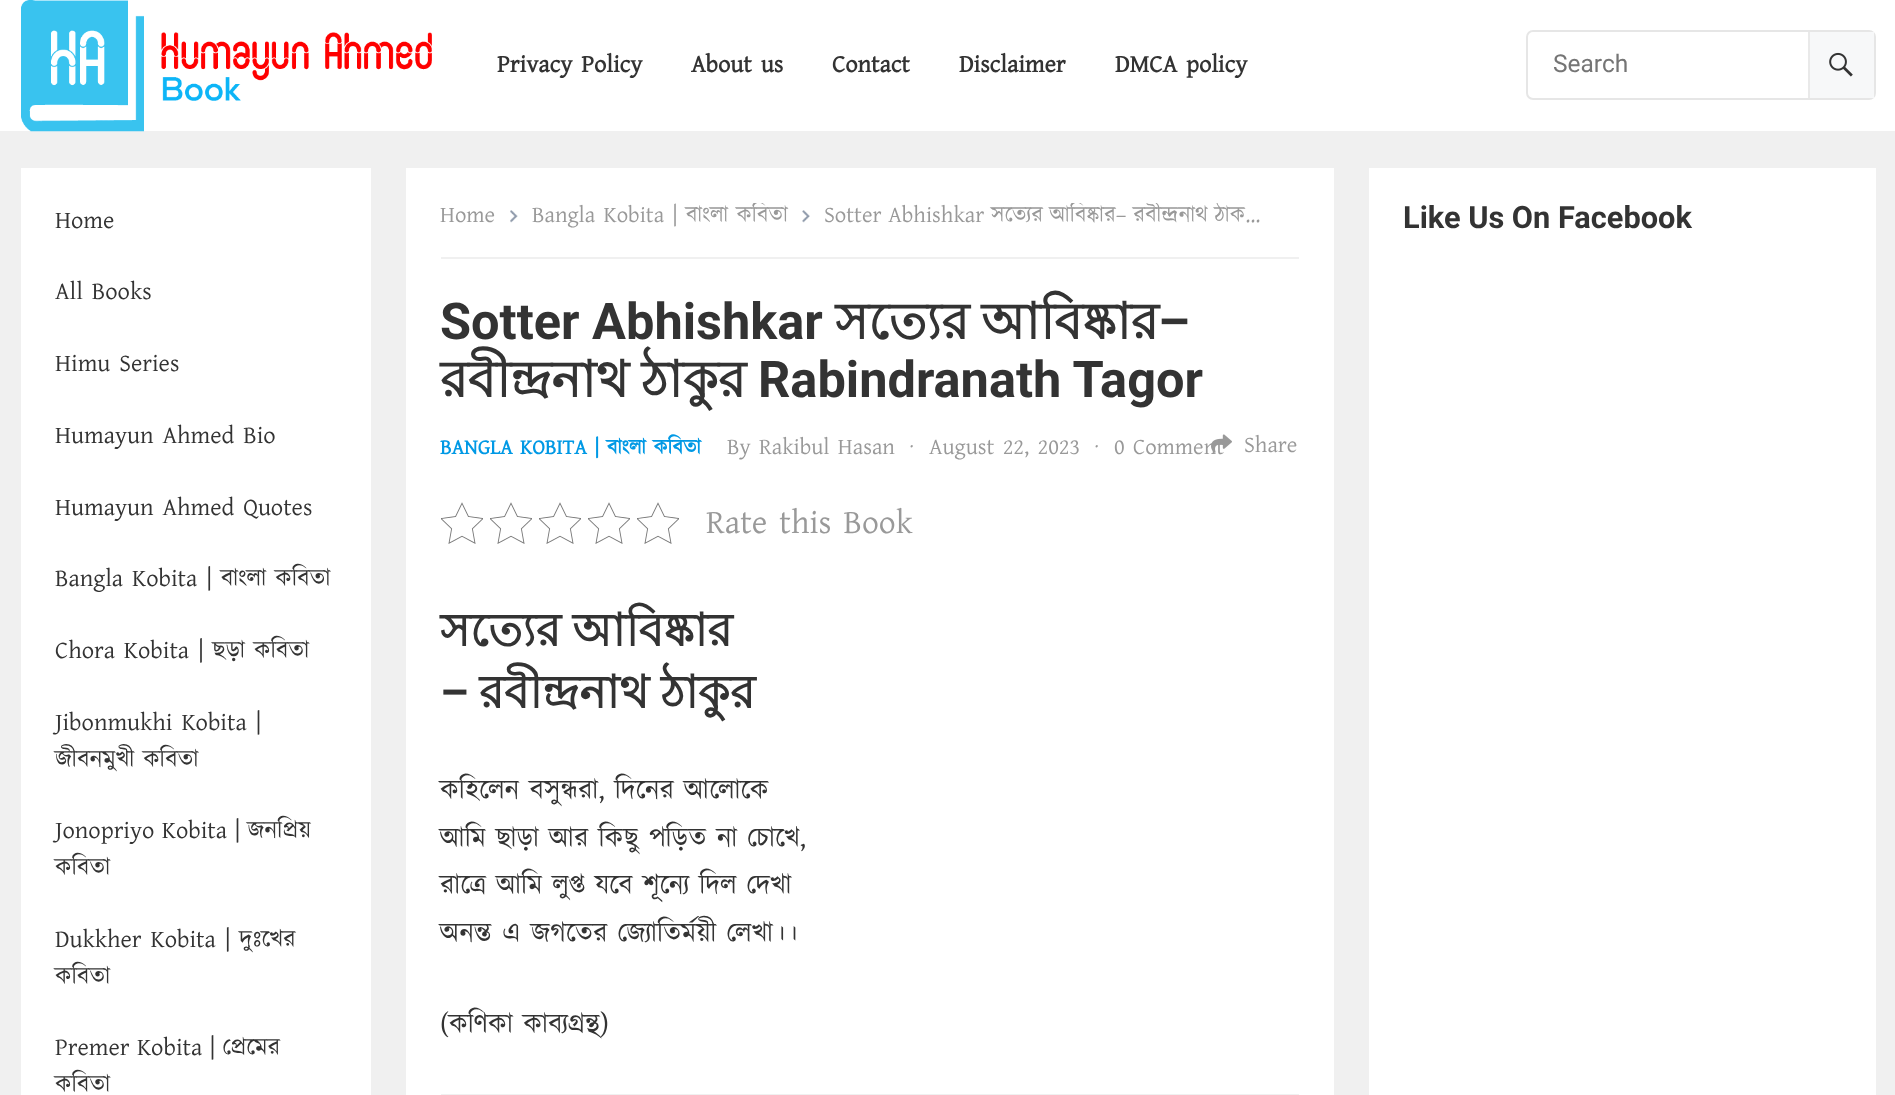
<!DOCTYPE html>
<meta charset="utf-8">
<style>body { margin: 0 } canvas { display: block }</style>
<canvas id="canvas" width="1895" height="1095"></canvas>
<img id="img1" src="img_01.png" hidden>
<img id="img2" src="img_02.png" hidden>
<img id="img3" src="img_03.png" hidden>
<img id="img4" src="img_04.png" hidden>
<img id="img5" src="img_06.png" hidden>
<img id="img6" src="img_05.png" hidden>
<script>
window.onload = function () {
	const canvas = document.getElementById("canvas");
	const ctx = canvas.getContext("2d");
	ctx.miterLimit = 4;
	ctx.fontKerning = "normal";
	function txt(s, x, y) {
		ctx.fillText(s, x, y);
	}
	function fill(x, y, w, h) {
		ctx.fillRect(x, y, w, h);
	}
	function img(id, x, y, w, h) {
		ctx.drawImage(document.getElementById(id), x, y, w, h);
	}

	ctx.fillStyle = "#F0F0F0";
	fill(0, 0, 1895, 1095);
	ctx.fillStyle = "#FFFFFF";
	fill(0, 0, 1895, 131);
	img("img1", 21, 0, 411, 132);
	ctx.beginPath();
	ctx.roundRect(1527, 31, 348, 68, 6);
	ctx.strokeStyle = "#E6E6E6";
	ctx.lineWidth = 2;
	ctx.stroke();
	ctx.fillStyle = "#F7F8F9";
	fill(1810, 32, 64, 66);
	ctx.fillStyle = "#E9E9E9";
	fill(1808, 32, 2, 66);
	img("img2", 1829, 52, 24, 25);
	ctx.fillStyle = "#FFFFFF";
	fill(21, 168, 350, 927);
	fill(406, 168, 928, 927);
	ctx.fillStyle = "#F0F0F0";
	fill(441, 257, 858, 2);
	img("img3", 510, 210, 8, 13);
	img("img4", 802, 210, 8, 13);
	img("img5", 441, 502, 42, 42);
	img("img5", 490, 502, 42, 42);
	img("img5", 539, 502, 42, 42);
	img("img5", 588, 502, 42, 42);
	img("img5", 637, 502, 42, 42);
	fill(441, 1094, 858, 1);
	ctx.fillStyle = "#FFFFFF";
	fill(1369, 168, 507, 927);
	ctx.font = "bold 24.5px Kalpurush";
	ctx.fillStyle = "#333333";
	txt("Privacy Policy", 497, 72);
	txt("About us", 691, 72);
	txt("Contact", 832, 72);
	txt("Disclaimer", 959, 72);
	txt("DMCA policy", 1115, 72);
	ctx.font = "24.5px Roboto";
	ctx.fillStyle = "#757575";
	txt("Search", 1553, 72);
	ctx.font = "24.5px Kalpurush";
	ctx.fillStyle = "#333333";
	txt("Home", 55, 228);
	txt("All Books", 55, 299);
	txt("Himu Series", 55, 371);
	txt("Humayun Ahmed Bio", 55, 443);
	txt("Humayun Ahmed Quotes", 55, 515);
	txt("Bangla Kobita | বাংলা কবিতা", 55, 586);
	txt("Chora Kobita | ছড়া কবিতা", 55, 658);
	txt("Jibonmukhi Kobita |", 55, 730);
	txt("জীবনমুখী কবিতা", 55, 767);
	ctx.wordSpacing = "-1.5px";
	txt("Jonopriyo Kobita | জনপ্রিয়", 55, 838);
	ctx.wordSpacing = "0px";
	txt("কবিতা", 55, 875);
	txt("Dukkher Kobita | দুঃখের", 55, 947);
	txt("কবিতা", 55, 984);
	ctx.wordSpacing = "-1.5px";
	txt("Premer Kobita | প্রেমের", 55, 1055);
	ctx.wordSpacing = "0px";
	txt("কবিতা", 55, 1092);
	ctx.font = "22.75px Kalpurush";
	ctx.fillStyle = "#999999";
	txt("Home", 440, 222);
	ctx.save();
	ctx.beginPath();
	ctx.rect(441, 203, 858, 54);
	ctx.clip();
	txt("Bangla Kobita | বাংলা কবিতা", 532, 222);
	ctx.wordSpacing = "-1.5px";
	txt("Sotter Abhishkar সত্যের আবিষ্কার– রবীন্দ্রনাথ ঠাক…", 824, 222);
	ctx.restore();
	ctx.font = "bold 50.5px Roboto";
	ctx.fillStyle = "#333333";
	txt("Sotter Abhishkar", 440, 339);
	ctx.font = "bold 50.5px Lohit Bengali";
	txt("সত্যের", 835, 339);
	txt("আবিষ্কার", 981, 339);
	ctx.font = "bold 50.5px Roboto";
	txt("–", 1158, 339);
	ctx.font = "bold 50.5px Lohit Bengali";
	txt("রবীন্দ্রনাথ", 440, 397);
	txt("ঠাকুর", 641, 397);
	ctx.font = "bold 50.5px Roboto";
	txt("Rabindranath Tagor", 758, 397);
	ctx.font = "bold 21px Kalpurush";
	ctx.fillStyle = "#0099E5";
	txt("BANGLA KOBITA | বাংলা কবিতা", 440, 454);
	ctx.font = "22.75px Kalpurush";
	ctx.fillStyle = "#999999";
	txt("By Rakibul Hasan", 727, 454);
	txt("·", 910, 454);
	txt("August 22, 2023", 929, 454);
	txt("·", 1095, 454);
	txt("0 Comment", 1114, 454);
	img("img6", 1211, 434, 21, 19);
	txt("Share", 1244, 452);
	ctx.font = "33.5px Kalpurush";
	txt("Rate this Book", 706, 533);
	ctx.wordSpacing = "-1px";
	ctx.font = "bold 45.5px Lohit Bengali";
	ctx.fillStyle = "#333333";
	txt("সত্যের আবিষ্কার", 440, 646);
	ctx.wordSpacing = "0px";
	ctx.font = "bold 45.5px Roboto";
	txt("–", 440, 708);
	ctx.wordSpacing = "-1px";
	ctx.font = "bold 45.5px Lohit Bengali";
	txt("রবীন্দ্রনাথ ঠাকুর", 479, 708);
	ctx.wordSpacing = "0px";
	ctx.font = "28px Kalpurush";
	txt("কহিলেন বসুন্ধরা, দিনের আলোকে", 440, 799);
	txt("আমি ছাড়া আর কিছু পড়িত না চোখে,", 440, 847);
	txt("রাত্রে আমি লুপ্ত যবে শূন্যে দিল দেখা", 440, 894);
	txt("অনন্ত এ জগতের জ্যোতির্ময়ী লেখা।।", 440, 942);
	txt("(কণিকা কাব্যগ্রন্থ)", 440, 1033);
	ctx.font = "bold 30.75px Roboto";
	txt("Like Us On Facebook", 1403, 228);
};
</script>
